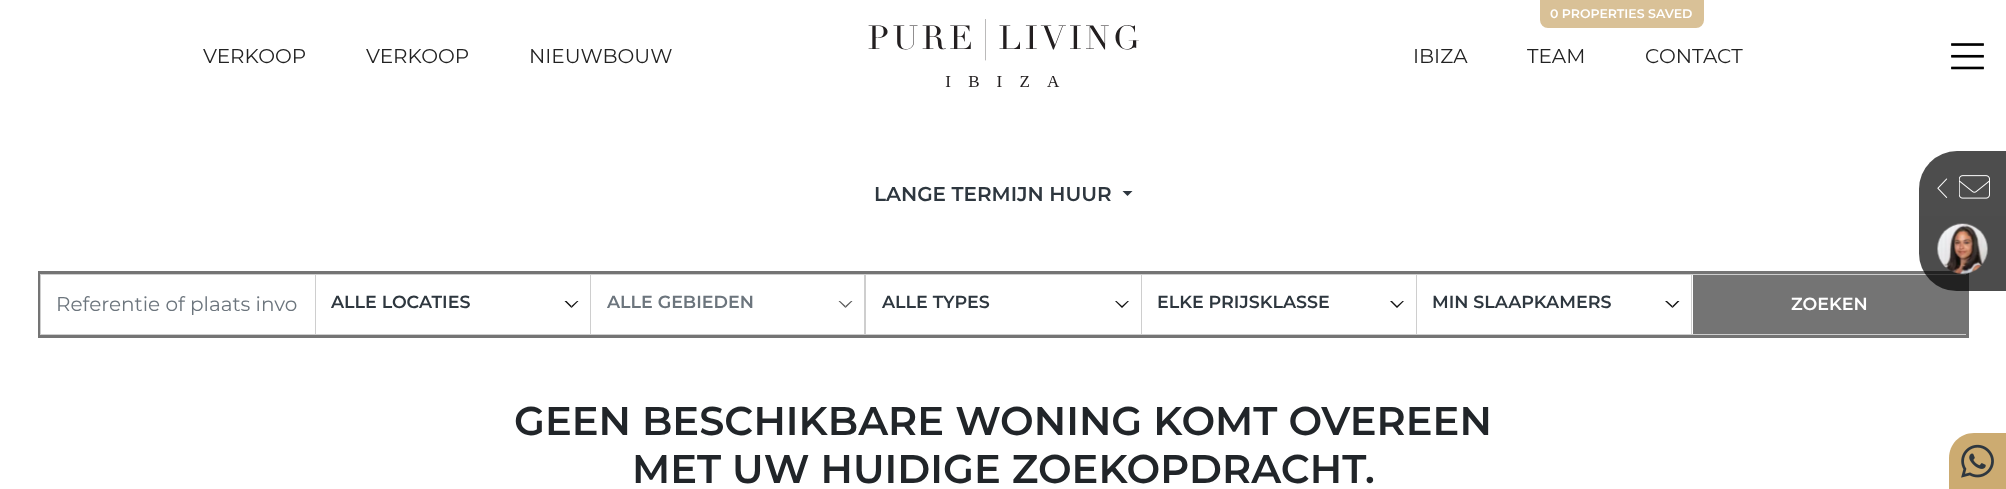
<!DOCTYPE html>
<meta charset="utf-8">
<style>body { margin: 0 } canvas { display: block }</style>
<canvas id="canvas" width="2006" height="489"></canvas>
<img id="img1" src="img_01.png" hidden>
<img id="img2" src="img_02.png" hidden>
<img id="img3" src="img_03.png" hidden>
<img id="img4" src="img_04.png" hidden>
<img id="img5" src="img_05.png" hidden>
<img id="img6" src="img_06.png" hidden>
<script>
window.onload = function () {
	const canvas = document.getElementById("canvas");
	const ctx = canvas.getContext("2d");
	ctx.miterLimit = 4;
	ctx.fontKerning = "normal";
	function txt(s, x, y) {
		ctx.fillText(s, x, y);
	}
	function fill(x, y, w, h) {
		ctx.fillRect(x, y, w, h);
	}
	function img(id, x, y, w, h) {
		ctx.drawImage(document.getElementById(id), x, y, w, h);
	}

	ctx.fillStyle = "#FFFFFF";
	fill(0, 0, 2006, 489);
	ctx.fillStyle = "#D9C197";
	ctx.beginPath();
	ctx.roundRect(1541.5, 1.5, 161, 25, [0, 0, 6.5, 6.5]);
	ctx.fill();
	ctx.strokeStyle = "#D9C197";
	ctx.lineWidth = 3;
	ctx.stroke();
	img("img1", 868, 19, 271, 68);
	img("img2", 1951, 43, 33, 27);
	ctx.fillStyle = "#2E373F";
	ctx.beginPath();
	ctx.moveTo(1122.5, 191);
	ctx.lineTo(1132.5, 191);
	ctx.lineTo(1127.5, 196);
	ctx.closePath();
	ctx.fill();
	ctx.strokeStyle = "#747474";
	ctx.strokeRect(39.5, 272.5, 1928, 64);
	ctx.fillStyle = "#CECECE";
	fill(40, 274, 550, 1);
	fill(40, 334, 550, 1);
	fill(40, 274, 1, 61);
	fill(315, 274, 1, 61);
	ctx.fillStyle = "#111111";
	ctx.beginPath();
	ctx.moveTo(578.5, 301);
	ctx.lineTo(571.5, 308);
	ctx.lineTo(571.5, 306);
	ctx.lineTo(577, 301);
	ctx.closePath();
	ctx.fill();
	ctx.beginPath();
	ctx.moveTo(571.5, 308);
	ctx.lineTo(564.5, 301);
	ctx.lineTo(566.5, 301);
	ctx.lineTo(571.5, 306);
	ctx.closePath();
	ctx.fill();
	ctx.strokeStyle = "#CECECE";
	ctx.lineWidth = 1;
	ctx.strokeRect(590.5, 274.5, 274, 60);
	ctx.fillStyle = "#585858";
	ctx.beginPath();
	ctx.moveTo(852.5, 301);
	ctx.lineTo(845.5, 308);
	ctx.lineTo(845.5, 306);
	ctx.lineTo(851, 301);
	ctx.closePath();
	ctx.fill();
	ctx.beginPath();
	ctx.moveTo(845.5, 308);
	ctx.lineTo(838.5, 301);
	ctx.lineTo(840, 301);
	ctx.lineTo(845.5, 306);
	ctx.closePath();
	ctx.fill();
	ctx.fillStyle = "#CECECE";
	fill(865, 274, 1101, 1);
	fill(865, 334, 1101, 1);
	fill(865, 274, 1, 61);
	ctx.fillStyle = "#111111";
	ctx.beginPath();
	ctx.moveTo(1129, 301);
	ctx.lineTo(1122, 308);
	ctx.lineTo(1122, 306);
	ctx.lineTo(1127.5, 301);
	ctx.closePath();
	ctx.moveTo(1122, 308);
	ctx.lineTo(1115, 301);
	ctx.lineTo(1116.5, 301);
	ctx.lineTo(1122, 306);
	ctx.closePath();
	ctx.fill();
	ctx.fillStyle = "#CECECE";
	fill(1141, 274, 1, 61);
	ctx.fillStyle = "#111111";
	ctx.beginPath();
	ctx.moveTo(1404, 301);
	ctx.lineTo(1397, 308);
	ctx.lineTo(1397, 306);
	ctx.lineTo(1402.5, 301);
	ctx.closePath();
	ctx.moveTo(1397, 308);
	ctx.lineTo(1390, 301);
	ctx.lineTo(1392, 301);
	ctx.lineTo(1397, 306);
	ctx.closePath();
	ctx.fill();
	ctx.fillStyle = "#CECECE";
	fill(1416, 274, 1, 61);
	ctx.fillStyle = "#111111";
	ctx.beginPath();
	ctx.moveTo(1679.5, 301);
	ctx.lineTo(1672.5, 308);
	ctx.lineTo(1672.5, 306);
	ctx.lineTo(1677.5, 301);
	ctx.closePath();
	ctx.fill();
	ctx.beginPath();
	ctx.moveTo(1672.5, 308);
	ctx.lineTo(1665, 301);
	ctx.lineTo(1667, 301);
	ctx.lineTo(1672.5, 306);
	ctx.closePath();
	ctx.fill();
	ctx.fillStyle = "#747474";
	fill(1693, 275, 273, 59);
	ctx.fillStyle = "#CECECE";
	fill(1691, 274, 1, 61);
	ctx.fillStyle = "#4D4D4D";
	ctx.beginPath();
	ctx.roundRect(1919, 151, 87, 65, [38, 0, 0, 0]);
	ctx.fill();
	img("img3", 1959, 175, 31, 24);
	img("img4", 1937, 178, 11, 20);
	ctx.fillStyle = "rgba(0, 0, 0, 0.7)";
	ctx.beginPath();
	ctx.roundRect(1919, 216, 87, 75, [0, 0, 0, 37.5]);
	ctx.fill();
	img("img5", 1937, 223, 51, 51);
	ctx.fillStyle = "#CCAB71";
	ctx.beginPath();
	ctx.moveTo(1974, 433);
	ctx.lineTo(2006, 433);
	ctx.lineTo(2006, 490);
	ctx.lineTo(1949, 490);
	ctx.lineTo(1949, 458);
	ctx.bezierCurveTo(1949, 444, 1960, 433, 1974, 433);
	ctx.closePath();
	ctx.fill();
	img("img6", 1961, 444, 33, 34);
	ctx.font = "100 12.5px Montserrat";
	ctx.fillStyle = "#FFFFFF";
	txt("0 PROPERTIES SAVED", 1550, 18);
	ctx.font = "100 20px 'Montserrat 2'";
	ctx.fillStyle = "#222222";
	txt("VERKOOP", 203, 63);
	txt("VERKOOP", 366, 63);
	txt("NIEUWBOUW", 529, 63);
	txt("IBIZA", 1413, 63);
	txt("TEAM", 1527, 63);
	txt("CONTACT", 1645, 63);
	ctx.font = "100 20px Montserrat";
	ctx.fillStyle = "#2E373F";
	txt("LANGE TERMIJN HUUR", 874, 201);
	ctx.font = "100 20px 'Montserrat 2'";
	ctx.fillStyle = "#6C757D";
	txt("Referentie of plaats invo", 56, 311);
	ctx.font = "100 17.5px Montserrat";
	ctx.fillStyle = "#2E373F";
	txt("ALLE LOCATIES", 331, 308);
	ctx.fillStyle = "#6C757D";
	txt("ALLE GEBIEDEN", 607, 308);
	ctx.fillStyle = "#2E373F";
	txt("ALLE TYPES", 882, 308);
	txt("ELKE PRIJSKLASSE", 1157, 308);
	txt("MIN SLAAPKAMERS", 1432, 308);
	ctx.fillStyle = "#FFFFFF";
	txt("ZOEKEN", 1791, 310);
	ctx.font = "100 40px Montserrat";
	ctx.fillStyle = "#212529";
	txt("GEEN BESCHIKBARE WONING KOMT OVEREEN", 514, 435);
	txt("MET UW HUIDIGE ZOEKOPDRACHT.", 632, 483);
};
</script>
